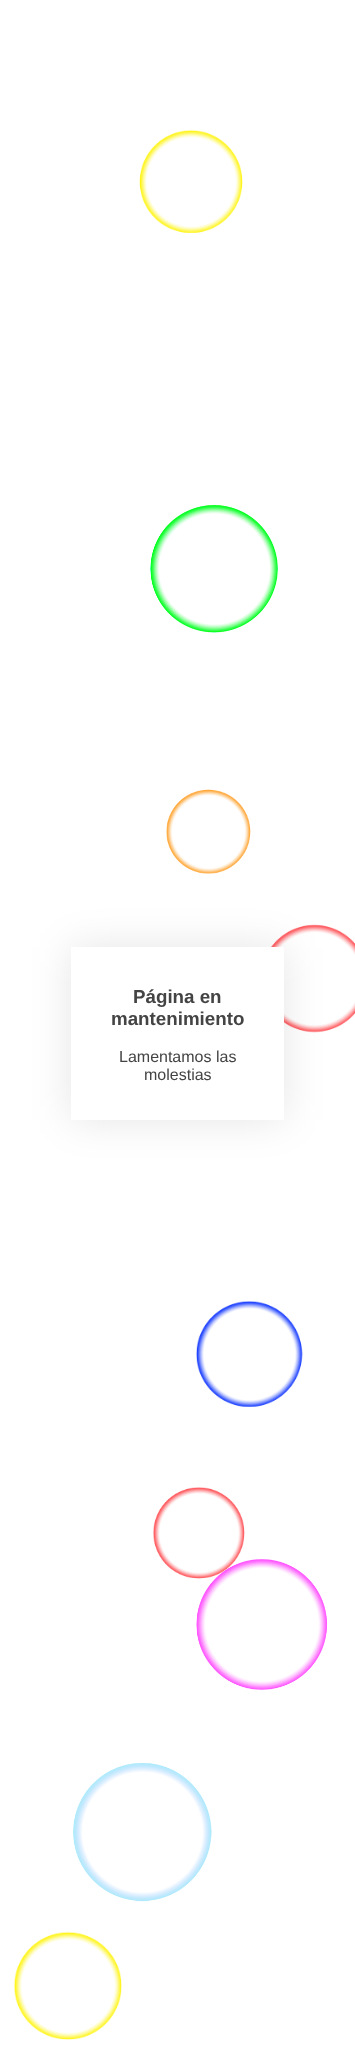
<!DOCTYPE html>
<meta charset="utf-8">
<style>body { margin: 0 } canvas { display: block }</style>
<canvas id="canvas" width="355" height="2067"></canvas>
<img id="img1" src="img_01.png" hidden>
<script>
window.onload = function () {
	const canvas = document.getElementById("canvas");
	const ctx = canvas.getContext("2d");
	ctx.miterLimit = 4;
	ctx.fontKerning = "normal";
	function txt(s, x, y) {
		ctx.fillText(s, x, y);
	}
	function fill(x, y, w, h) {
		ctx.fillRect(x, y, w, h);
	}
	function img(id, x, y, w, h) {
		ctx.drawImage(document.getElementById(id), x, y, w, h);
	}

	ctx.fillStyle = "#FFFFFF";
	fill(0, 0, 355, 2067);
	img("img1", 13, 130, 342, 1910);
	ctx.fillStyle = "rgba(0, 0, 0, 0.1)";
	ctx.filter = "blur(20px)";
	ctx.beginPath();
	ctx.rect(71, 947, 213, 173);
	ctx.fill();
	ctx.filter = "none";
	ctx.fillStyle = "#FFFFFF";
	fill(71, 947, 213, 173);
	ctx.font = "bold 18.75px Liberation Sans";
	ctx.fillStyle = "#444444";
	txt("Página en", 133, 1003);
	txt("mantenimiento", 111, 1025);
	ctx.font = "16px Liberation Sans";
	txt("Lamentamos las", 119, 1062);
	txt("molestias", 144, 1080);
};
</script>
